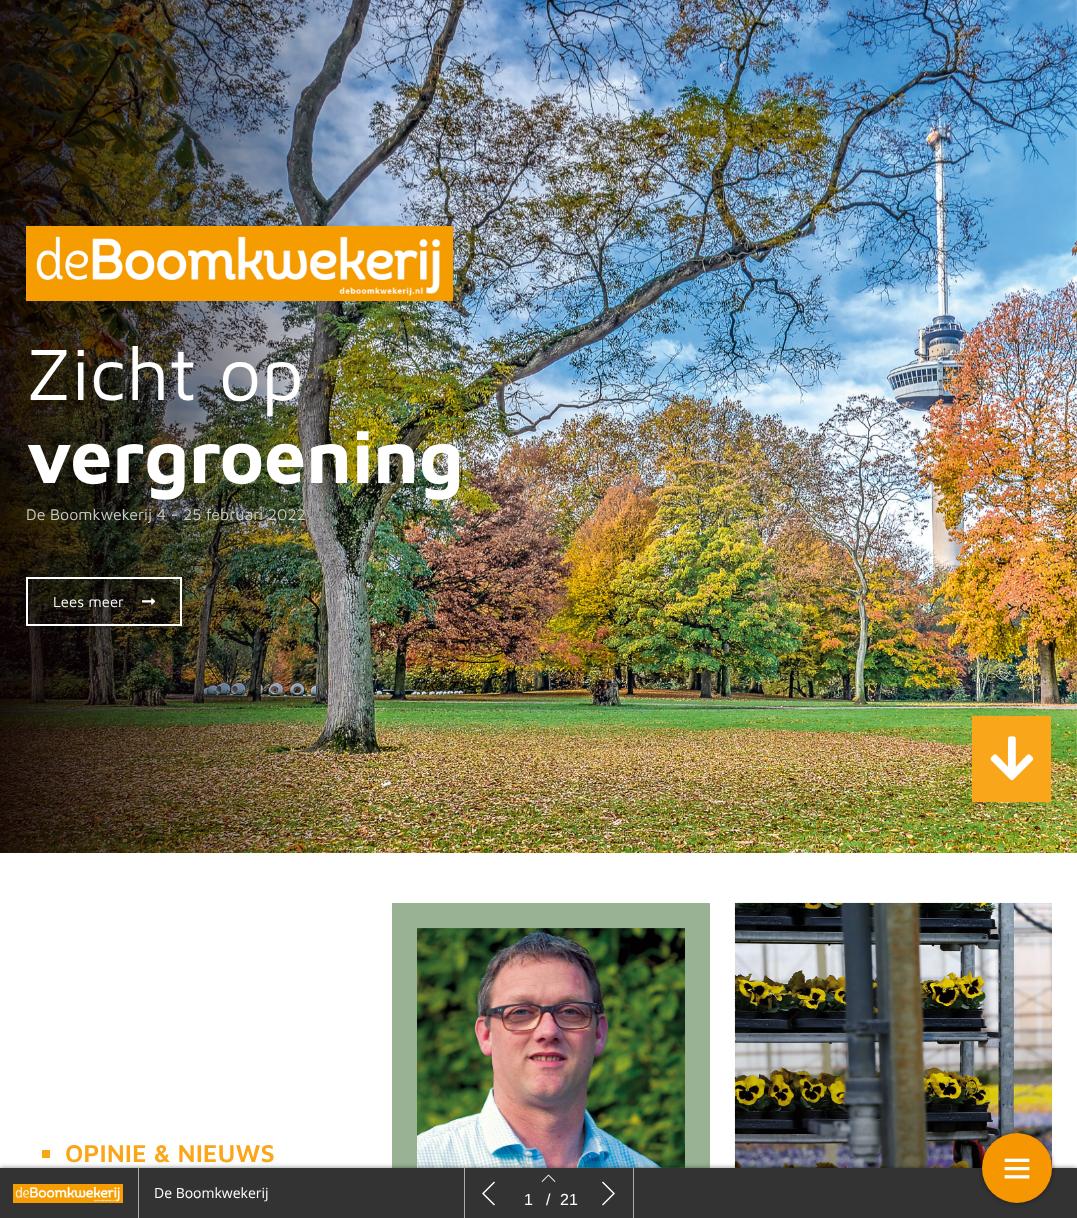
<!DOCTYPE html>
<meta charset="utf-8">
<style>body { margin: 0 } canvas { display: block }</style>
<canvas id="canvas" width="1077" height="1218"></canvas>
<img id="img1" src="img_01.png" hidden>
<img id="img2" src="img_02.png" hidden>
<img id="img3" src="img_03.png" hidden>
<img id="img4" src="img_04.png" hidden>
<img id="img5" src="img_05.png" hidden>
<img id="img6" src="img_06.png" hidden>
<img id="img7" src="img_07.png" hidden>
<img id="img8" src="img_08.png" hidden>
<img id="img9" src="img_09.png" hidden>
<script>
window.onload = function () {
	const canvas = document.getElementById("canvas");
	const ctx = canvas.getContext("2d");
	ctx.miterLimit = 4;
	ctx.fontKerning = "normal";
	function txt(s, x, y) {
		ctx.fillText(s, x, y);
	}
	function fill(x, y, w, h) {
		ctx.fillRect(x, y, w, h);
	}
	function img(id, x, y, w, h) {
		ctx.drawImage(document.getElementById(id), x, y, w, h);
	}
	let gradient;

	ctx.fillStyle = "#FFFFFF";
	fill(0, 0, 1077, 1218);
	img("img1", 0, 0, 1077, 853);
	gradient = ctx.createLinearGradient(1077, 426, 0, 427);
	gradient.addColorStop(0.65, "rgba(12, 0, 0, 0)");
	gradient.addColorStop(1, "rgba(12, 0, 0, 0.87)");
	ctx.fillStyle = gradient;
	fill(0, 0, 368, 853);
	img("img2", 26, 226, 428, 75);
	ctx.save();
	ctx.beginPath();
	ctx.moveTo(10, 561);
	ctx.lineTo(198, 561);
	ctx.lineTo(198, 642);
	ctx.lineTo(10, 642);
	ctx.closePath();
	ctx.moveTo(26, 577);
	ctx.lineTo(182, 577);
	ctx.lineTo(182, 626);
	ctx.lineTo(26, 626);
	ctx.closePath();
	ctx.clip("evenodd");
	ctx.fillStyle = "rgba(0, 0, 0, 0.5)";
	ctx.filter = "blur(5px)";
	ctx.beginPath();
	ctx.rect(26, 577, 156, 49);
	ctx.fill();
	ctx.filter = "none";
	ctx.restore();
	ctx.strokeStyle = "#FFFFFF";
	ctx.lineWidth = 2;
	ctx.strokeRect(27, 578, 154, 47);
	img("img3", 142, 598, 14, 7);
	ctx.fillStyle = "#FAA61A";
	fill(972, 716, 79, 86);
	img("img4", 990, 736, 44, 45);
	fill(42, 1150, 8, 8);
	ctx.fillStyle = "#9AB294";
	fill(392, 903, 318, 265);
	img("img5", 417, 928, 268, 240);
	img("img6", 734, 902, 318, 266);
	ctx.fillStyle = "rgba(0, 0, 0, 0.5)";
	ctx.filter = "blur(2.5px)";
	ctx.beginPath();
	ctx.rect(0, 1168, 1077, 50);
	ctx.fill();
	ctx.filter = "none";
	ctx.fillStyle = "#333334";
	fill(0, 1168, 1077, 50);
	img("img7", 13, 1184, 110, 19);
	ctx.fillStyle = "#ADADAE";
	fill(138, 1168, 1, 50);
	fill(464, 1168, 1, 50);
	ctx.fillStyle = "#FFFFFF";
	ctx.beginPath();
	ctx.moveTo(484, 1193.5);
	ctx.lineTo(495, 1204.5);
	ctx.lineTo(494, 1205.5);
	ctx.lineTo(482, 1193.5);
	ctx.lineTo(494, 1181.5);
	ctx.lineTo(495, 1182.5);
	ctx.closePath();
	ctx.fill();
	img("img8", 541, 1174, 15, 8);
	ctx.fillStyle = "#ADADAE";
	fill(633, 1168, 1, 50);
	ctx.fillStyle = "#FFFFFF";
	ctx.beginPath();
	ctx.moveTo(615, 1193.5);
	ctx.lineTo(603, 1205.5);
	ctx.lineTo(602, 1204.5);
	ctx.lineTo(613, 1193.5);
	ctx.lineTo(602, 1182.5);
	ctx.lineTo(603, 1181.5);
	ctx.closePath();
	ctx.fill();
	ctx.fillStyle = "rgba(0, 0, 0, 0.5)";
	ctx.filter = "blur(2.5px)";
	ctx.beginPath();
	ctx.roundRect(982, 1133, 70, 70, 35);
	ctx.fill();
	ctx.filter = "none";
	ctx.fillStyle = "#F69601";
	ctx.beginPath();
	ctx.arc(1017, 1168, 35, 0, Math.PI * 2);
	ctx.fill();
	img("img9", 1004, 1158, 26, 21);
	ctx.font = "75px Maven Pro";
	ctx.fillStyle = "#FFFFFF";
	txt("Zicht op", 26, 400);
	ctx.font = "bold 75px Maven Pro";
	txt("vergroening", 26, 483);
	ctx.font = "16px Maven Pro";
	ctx.fillStyle = "#CCCDC8";
	txt("De Boomkwekerij 4 - 25 februari 2022", 26, 520);
	ctx.font = "15px Maven Pro";
	ctx.fillStyle = "#FFFFFF";
	txt("Lees meer", 53, 607);
	ctx.font = "600 25px Maven Pro";
	ctx.fillStyle = "#FAA61A";
	txt("OPINIE & NIEUWS", 65, 1162);
	ctx.font = "14px Open Sans";
	ctx.fillStyle = "#FFFFFF";
	txt("De Boomkwekerij", 154, 1198);
	ctx.font = "16px Liberation Sans";
	txt("1", 524, 1205);
	txt("/", 546, 1205);
	txt("21", 560, 1205);
};
</script>
